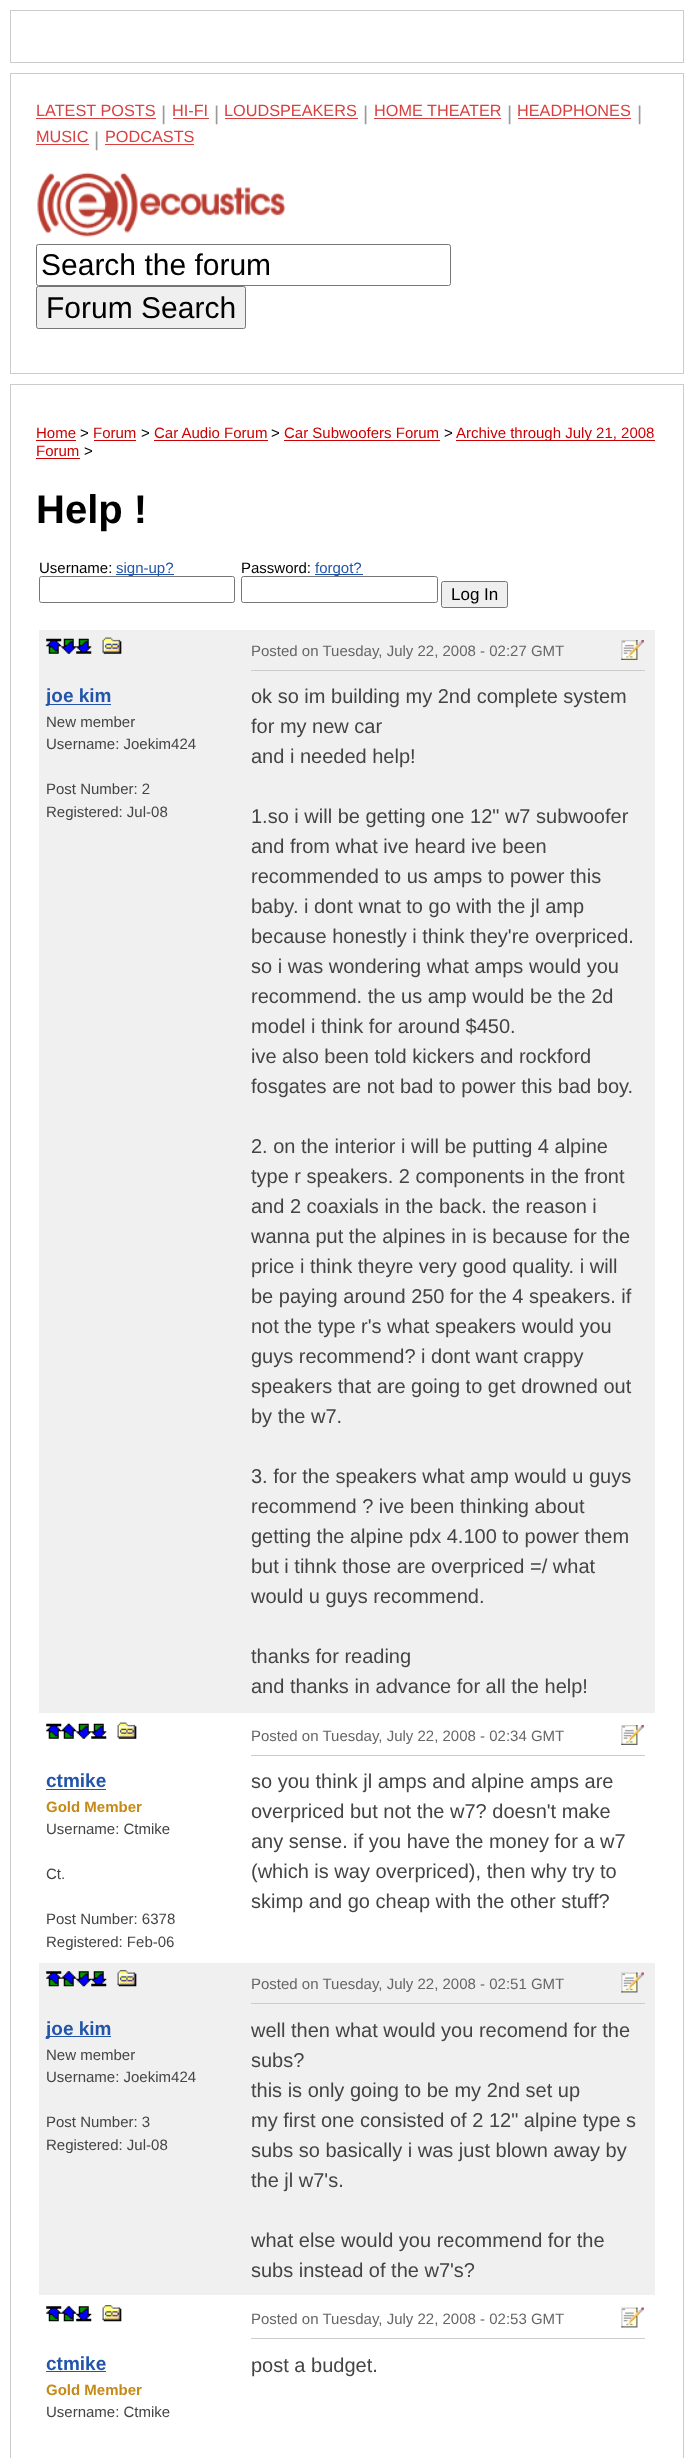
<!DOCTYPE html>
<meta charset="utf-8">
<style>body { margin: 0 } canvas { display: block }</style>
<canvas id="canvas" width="693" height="2458"></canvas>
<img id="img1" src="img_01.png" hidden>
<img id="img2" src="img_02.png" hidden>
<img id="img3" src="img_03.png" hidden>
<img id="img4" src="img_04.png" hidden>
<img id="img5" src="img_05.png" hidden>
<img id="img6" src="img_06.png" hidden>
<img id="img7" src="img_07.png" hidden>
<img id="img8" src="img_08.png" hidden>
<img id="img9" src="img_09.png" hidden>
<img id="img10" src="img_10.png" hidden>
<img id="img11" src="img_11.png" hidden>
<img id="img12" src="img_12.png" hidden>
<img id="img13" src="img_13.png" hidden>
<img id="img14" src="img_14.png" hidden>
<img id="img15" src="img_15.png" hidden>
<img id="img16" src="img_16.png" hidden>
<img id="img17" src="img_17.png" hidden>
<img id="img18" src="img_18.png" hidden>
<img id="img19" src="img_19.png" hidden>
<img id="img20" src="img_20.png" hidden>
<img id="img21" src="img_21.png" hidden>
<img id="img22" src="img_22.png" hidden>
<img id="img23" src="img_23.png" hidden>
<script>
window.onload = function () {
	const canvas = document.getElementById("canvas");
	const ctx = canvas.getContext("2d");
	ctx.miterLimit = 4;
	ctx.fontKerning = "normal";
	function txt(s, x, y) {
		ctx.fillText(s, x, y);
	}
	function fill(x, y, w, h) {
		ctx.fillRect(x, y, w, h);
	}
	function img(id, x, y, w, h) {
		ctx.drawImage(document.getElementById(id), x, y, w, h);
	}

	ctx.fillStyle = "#FFFFFF";
	fill(0, 0, 693, 2458);
	ctx.strokeStyle = "#CCCCCC";
	ctx.strokeRect(10.5, 10.5, 673, 52);
	ctx.strokeRect(10.5, 73.5, 673, 300);
	ctx.fillStyle = "#D94040";
	fill(36, 118, 120, 1);
	fill(173, 118, 36, 1);
	fill(225, 118, 133, 1);
	fill(374, 118, 127, 1);
	fill(518, 118, 113, 1);
	fill(36, 144, 53, 1);
	fill(105, 144, 89, 1);
	img("img1", 37, 172, 249, 65);
	ctx.beginPath();
	ctx.roundRect(36.5, 244.5, 414, 41, 2);
	ctx.strokeStyle = "#767676";
	ctx.stroke();
	ctx.fillStyle = "#EFEFEF";
	ctx.beginPath();
	ctx.roundRect(36.5, 286.5, 209, 42, 2);
	ctx.fill();
	ctx.stroke();
	ctx.strokeStyle = "#CCCCCC";
	ctx.strokeRect(10.5, 384.5, 673, 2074);
	ctx.fillStyle = "#CC0000";
	fill(36, 440, 40, 1);
	fill(94, 440, 42, 1);
	fill(154, 440, 114, 1);
	fill(284, 440, 156, 1);
	fill(456, 440, 199, 1);
	fill(36, 458, 44, 1);
	ctx.fillStyle = "#2255AA";
	fill(116, 574, 58, 1);
	fill(315, 574, 48, 1);
	ctx.fillStyle = "#EFEFEF";
	ctx.beginPath();
	ctx.roundRect(441.5, 581.5, 66, 26, 2);
	ctx.fill();
	ctx.strokeStyle = "#767676";
	ctx.stroke();
	ctx.fillStyle = "#F0F0F0";
	fill(39, 630, 616, 1083);
	img("img2", 46, 638, 16, 16);
	img("img3", 61, 638, 16, 16);
	img("img4", 76, 638, 16, 16);
	img("img5", 102, 637, 20, 17);
	ctx.fillStyle = "#2255AA";
	fill(46, 704, 65, 1);
	ctx.fillStyle = "#CCCCCC";
	fill(251, 670, 394, 1);
	img("img6", 621, 640, 23, 20);
	img("img7", 46, 1723, 16, 16);
	img("img8", 61, 1723, 16, 16);
	img("img9", 76, 1723, 16, 16);
	img("img10", 91, 1723, 16, 16);
	img("img11", 117, 1722, 20, 17);
	ctx.fillStyle = "#2255AA";
	fill(46, 1789, 60, 1);
	ctx.fillStyle = "#CCCCCC";
	fill(251, 1755, 394, 1);
	img("img12", 621, 1725, 23, 20);
	ctx.fillStyle = "#F0F0F0";
	fill(39, 1963, 616, 332);
	img("img13", 46, 1971, 16, 16);
	img("img14", 61, 1971, 16, 16);
	img("img15", 76, 1971, 16, 16);
	img("img16", 91, 1971, 16, 16);
	img("img17", 117, 1970, 20, 17);
	ctx.fillStyle = "#2255AA";
	fill(46, 2036, 65, 1);
	ctx.fillStyle = "#CCCCCC";
	fill(251, 2003, 394, 1);
	img("img18", 621, 1972, 23, 21);
	fill(251, 2338, 394, 1);
	img("img19", 621, 2307, 23, 21);
	img("img20", 46, 2306, 16, 16);
	img("img21", 61, 2306, 16, 16);
	img("img22", 76, 2306, 16, 16);
	img("img23", 102, 2305, 20, 17);
	ctx.fillStyle = "#2255AA";
	fill(46, 2371, 60, 1);
	ctx.font = "16.25px Liberation Sans";
	ctx.fillStyle = "#D94040";
	txt("LATEST POSTS", 36, 116);
	ctx.font = "20px Liberation Sans";
	ctx.fillStyle = "#999999";
	txt("|", 161, 120);
	ctx.font = "16.25px Liberation Sans";
	ctx.fillStyle = "#D94040";
	txt("HI-FI", 172, 116);
	ctx.font = "20px Liberation Sans";
	ctx.fillStyle = "#999999";
	txt("|", 214, 120);
	ctx.font = "16.25px Liberation Sans";
	ctx.fillStyle = "#D94040";
	txt("LOUDSPEAKERS", 224, 116);
	ctx.font = "20px Liberation Sans";
	ctx.fillStyle = "#999999";
	txt("|", 363, 120);
	ctx.font = "16.25px Liberation Sans";
	ctx.fillStyle = "#D94040";
	txt("HOME THEATER", 374, 116);
	ctx.font = "20px Liberation Sans";
	ctx.fillStyle = "#999999";
	txt("|", 507, 120);
	ctx.font = "16.25px Liberation Sans";
	ctx.fillStyle = "#D94040";
	txt("HEADPHONES", 517, 116);
	ctx.font = "20px Liberation Sans";
	ctx.fillStyle = "#999999";
	txt("|", 637, 120);
	ctx.font = "16.25px Liberation Sans";
	ctx.fillStyle = "#D94040";
	txt("MUSIC", 36, 142);
	ctx.font = "20px Liberation Sans";
	ctx.fillStyle = "#999999";
	txt("|", 94, 146);
	ctx.font = "16.25px Liberation Sans";
	ctx.fillStyle = "#D94040";
	txt("PODCASTS", 105, 142);
	ctx.font = "30px Liberation Sans";
	ctx.fillStyle = "#000000";
	txt("Search the forum", 41, 275);
	txt("Forum Search", 46, 318);
	ctx.font = "15px Liberation Sans";
	ctx.fillStyle = "#CC0000";
	txt("Home", 36, 438);
	ctx.fillStyle = "#000000";
	txt(">", 80, 438);
	ctx.fillStyle = "#CC0000";
	txt("Forum", 93, 438);
	ctx.fillStyle = "#000000";
	txt(">", 141, 438);
	ctx.fillStyle = "#CC0000";
	txt("Car Audio Forum", 154, 438);
	ctx.fillStyle = "#000000";
	txt(">", 271, 438);
	ctx.fillStyle = "#CC0000";
	txt("Car Subwoofers Forum", 284, 438);
	ctx.fillStyle = "#000000";
	txt(">", 444, 438);
	ctx.fillStyle = "#CC0000";
	txt("Archive through July 21, 2008", 456, 438);
	txt("Forum", 36, 456);
	ctx.fillStyle = "#000000";
	txt(">", 84, 456);
	ctx.font = "bold 40px Liberation Sans";
	txt("Help !", 36, 523);
	ctx.font = "15px Liberation Sans";
	txt("Username:", 39, 573);
	ctx.fillStyle = "#2255AA";
	txt("sign-up?", 116, 573);
	ctx.fillStyle = "#FFFFFF";
	ctx.beginPath();
	ctx.roundRect(39.5, 576.5, 195, 26, 2);
	ctx.fill();
	ctx.stroke();
	ctx.fillStyle = "#000000";
	txt("Password:", 241, 573);
	ctx.fillStyle = "#2255AA";
	txt("forgot?", 315, 573);
	ctx.fillStyle = "#FFFFFF";
	ctx.beginPath();
	ctx.roundRect(241.5, 576.5, 196, 26, 2);
	ctx.fill();
	ctx.stroke();
	ctx.font = "17px Liberation Sans";
	ctx.fillStyle = "#000000";
	txt("Log In", 451, 600);
	ctx.font = "bold 19px Liberation Sans";
	ctx.fillStyle = "#2255AA";
	txt("joe kim", 46, 702);
	ctx.font = "15px Liberation Sans";
	ctx.fillStyle = "#444444";
	txt("New member", 46, 727);
	txt("Username: Joekim424", 46, 749);
	txt("Post Number: 2", 46, 794);
	txt("Registered: Jul-08", 46, 817);
	ctx.fillStyle = "#666666";
	txt("Posted on Tuesday, July 22, 2008 - 02:27 GMT", 251, 656);
	ctx.font = "20px Liberation Sans";
	ctx.fillStyle = "#444444";
	txt("ok so im building my 2nd complete system", 251, 703);
	txt("for my new car", 251, 733);
	txt("and i needed help!", 251, 763);
	txt("1.so i will be getting one 12\" w7 subwoofer", 251, 823);
	txt("and from what ive heard ive been", 251, 853);
	txt("recommended to us amps to power this", 251, 883);
	txt("baby. i dont wnat to go with the jl amp", 251, 913);
	txt("because honestly i think they're overpriced.", 251, 943);
	txt("so i was wondering what amps would you", 251, 973);
	txt("recommend. the us amp would be the 2d", 251, 1003);
	txt("model i think for around $450.", 251, 1033);
	txt("ive also been told kickers and rockford", 251, 1063);
	txt("fosgates are not bad to power this bad boy.", 251, 1093);
	txt("2. on the interior i will be putting 4 alpine", 251, 1153);
	txt("type r speakers. 2 components in the front", 251, 1183);
	txt("and 2 coaxials in the back. the reason i", 251, 1213);
	txt("wanna put the alpines in is because for the", 251, 1243);
	txt("price i think theyre very good quality. i will", 251, 1273);
	txt("be paying around 250 for the 4 speakers. if", 251, 1303);
	txt("not the type r's what speakers would you", 251, 1333);
	txt("guys recommend? i dont want crappy", 251, 1363);
	txt("speakers that are going to get drowned out", 251, 1393);
	txt("by the w7.", 251, 1423);
	txt("3. for the speakers what amp would u guys", 251, 1483);
	txt("recommend ? ive been thinking about", 251, 1513);
	txt("getting the alpine pdx 4.100 to power them", 251, 1543);
	txt("but i tihnk those are overpriced =/ what", 251, 1573);
	txt("would u guys recommend.", 251, 1603);
	txt("thanks for reading", 251, 1663);
	txt("and thanks in advance for all the help!", 251, 1693);
	ctx.font = "bold 19px Liberation Sans";
	ctx.fillStyle = "#2255AA";
	txt("ctmike", 46, 1787);
	ctx.font = "bold 15px Liberation Sans";
	ctx.fillStyle = "#C58917";
	txt("Gold Member", 46, 1812);
	ctx.font = "15px Liberation Sans";
	ctx.fillStyle = "#444444";
	txt("Username: Ctmike", 46, 1834);
	txt("Ct.", 46, 1879);
	txt("Post Number: 6378", 46, 1924);
	txt("Registered: Feb-06", 46, 1947);
	ctx.fillStyle = "#666666";
	txt("Posted on Tuesday, July 22, 2008 - 02:34 GMT", 251, 1741);
	ctx.font = "20px Liberation Sans";
	ctx.fillStyle = "#444444";
	txt("so you think jl amps and alpine amps are", 251, 1788);
	txt("overpriced but not the w7? doesn't make", 251, 1818);
	txt("any sense. if you have the money for a w7", 251, 1848);
	txt("(which is way overpriced), then why try to", 251, 1878);
	txt("skimp and go cheap with the other stuff?", 251, 1908);
	ctx.font = "bold 19px Liberation Sans";
	ctx.fillStyle = "#2255AA";
	txt("joe kim", 46, 2035);
	ctx.font = "15px Liberation Sans";
	ctx.fillStyle = "#444444";
	txt("New member", 46, 2060);
	txt("Username: Joekim424", 46, 2082);
	txt("Post Number: 3", 46, 2127);
	txt("Registered: Jul-08", 46, 2150);
	ctx.fillStyle = "#666666";
	txt("Posted on Tuesday, July 22, 2008 - 02:51 GMT", 251, 1989);
	ctx.font = "20px Liberation Sans";
	ctx.fillStyle = "#444444";
	txt("well then what would you recomend for the", 251, 2037);
	txt("subs?", 251, 2067);
	txt("this is only going to be my 2nd set up", 251, 2097);
	txt("my first one consisted of 2 12\" alpine type s", 251, 2127);
	txt("subs so basically i was just blown away by", 251, 2157);
	txt("the jl w7's.", 251, 2187);
	txt("what else would you recommend for the", 251, 2247);
	txt("subs instead of the w7's?", 251, 2277);
	ctx.font = "15px Liberation Sans";
	ctx.fillStyle = "#666666";
	txt("Posted on Tuesday, July 22, 2008 - 02:53 GMT", 251, 2324);
	ctx.font = "20px Liberation Sans";
	ctx.fillStyle = "#444444";
	txt("post a budget.", 251, 2372);
	ctx.font = "bold 19px Liberation Sans";
	ctx.fillStyle = "#2255AA";
	txt("ctmike", 46, 2370);
	ctx.font = "bold 15px Liberation Sans";
	ctx.fillStyle = "#C58917";
	txt("Gold Member", 46, 2395);
	ctx.font = "15px Liberation Sans";
	ctx.fillStyle = "#444444";
	txt("Username: Ctmike", 46, 2417);
};
</script>
